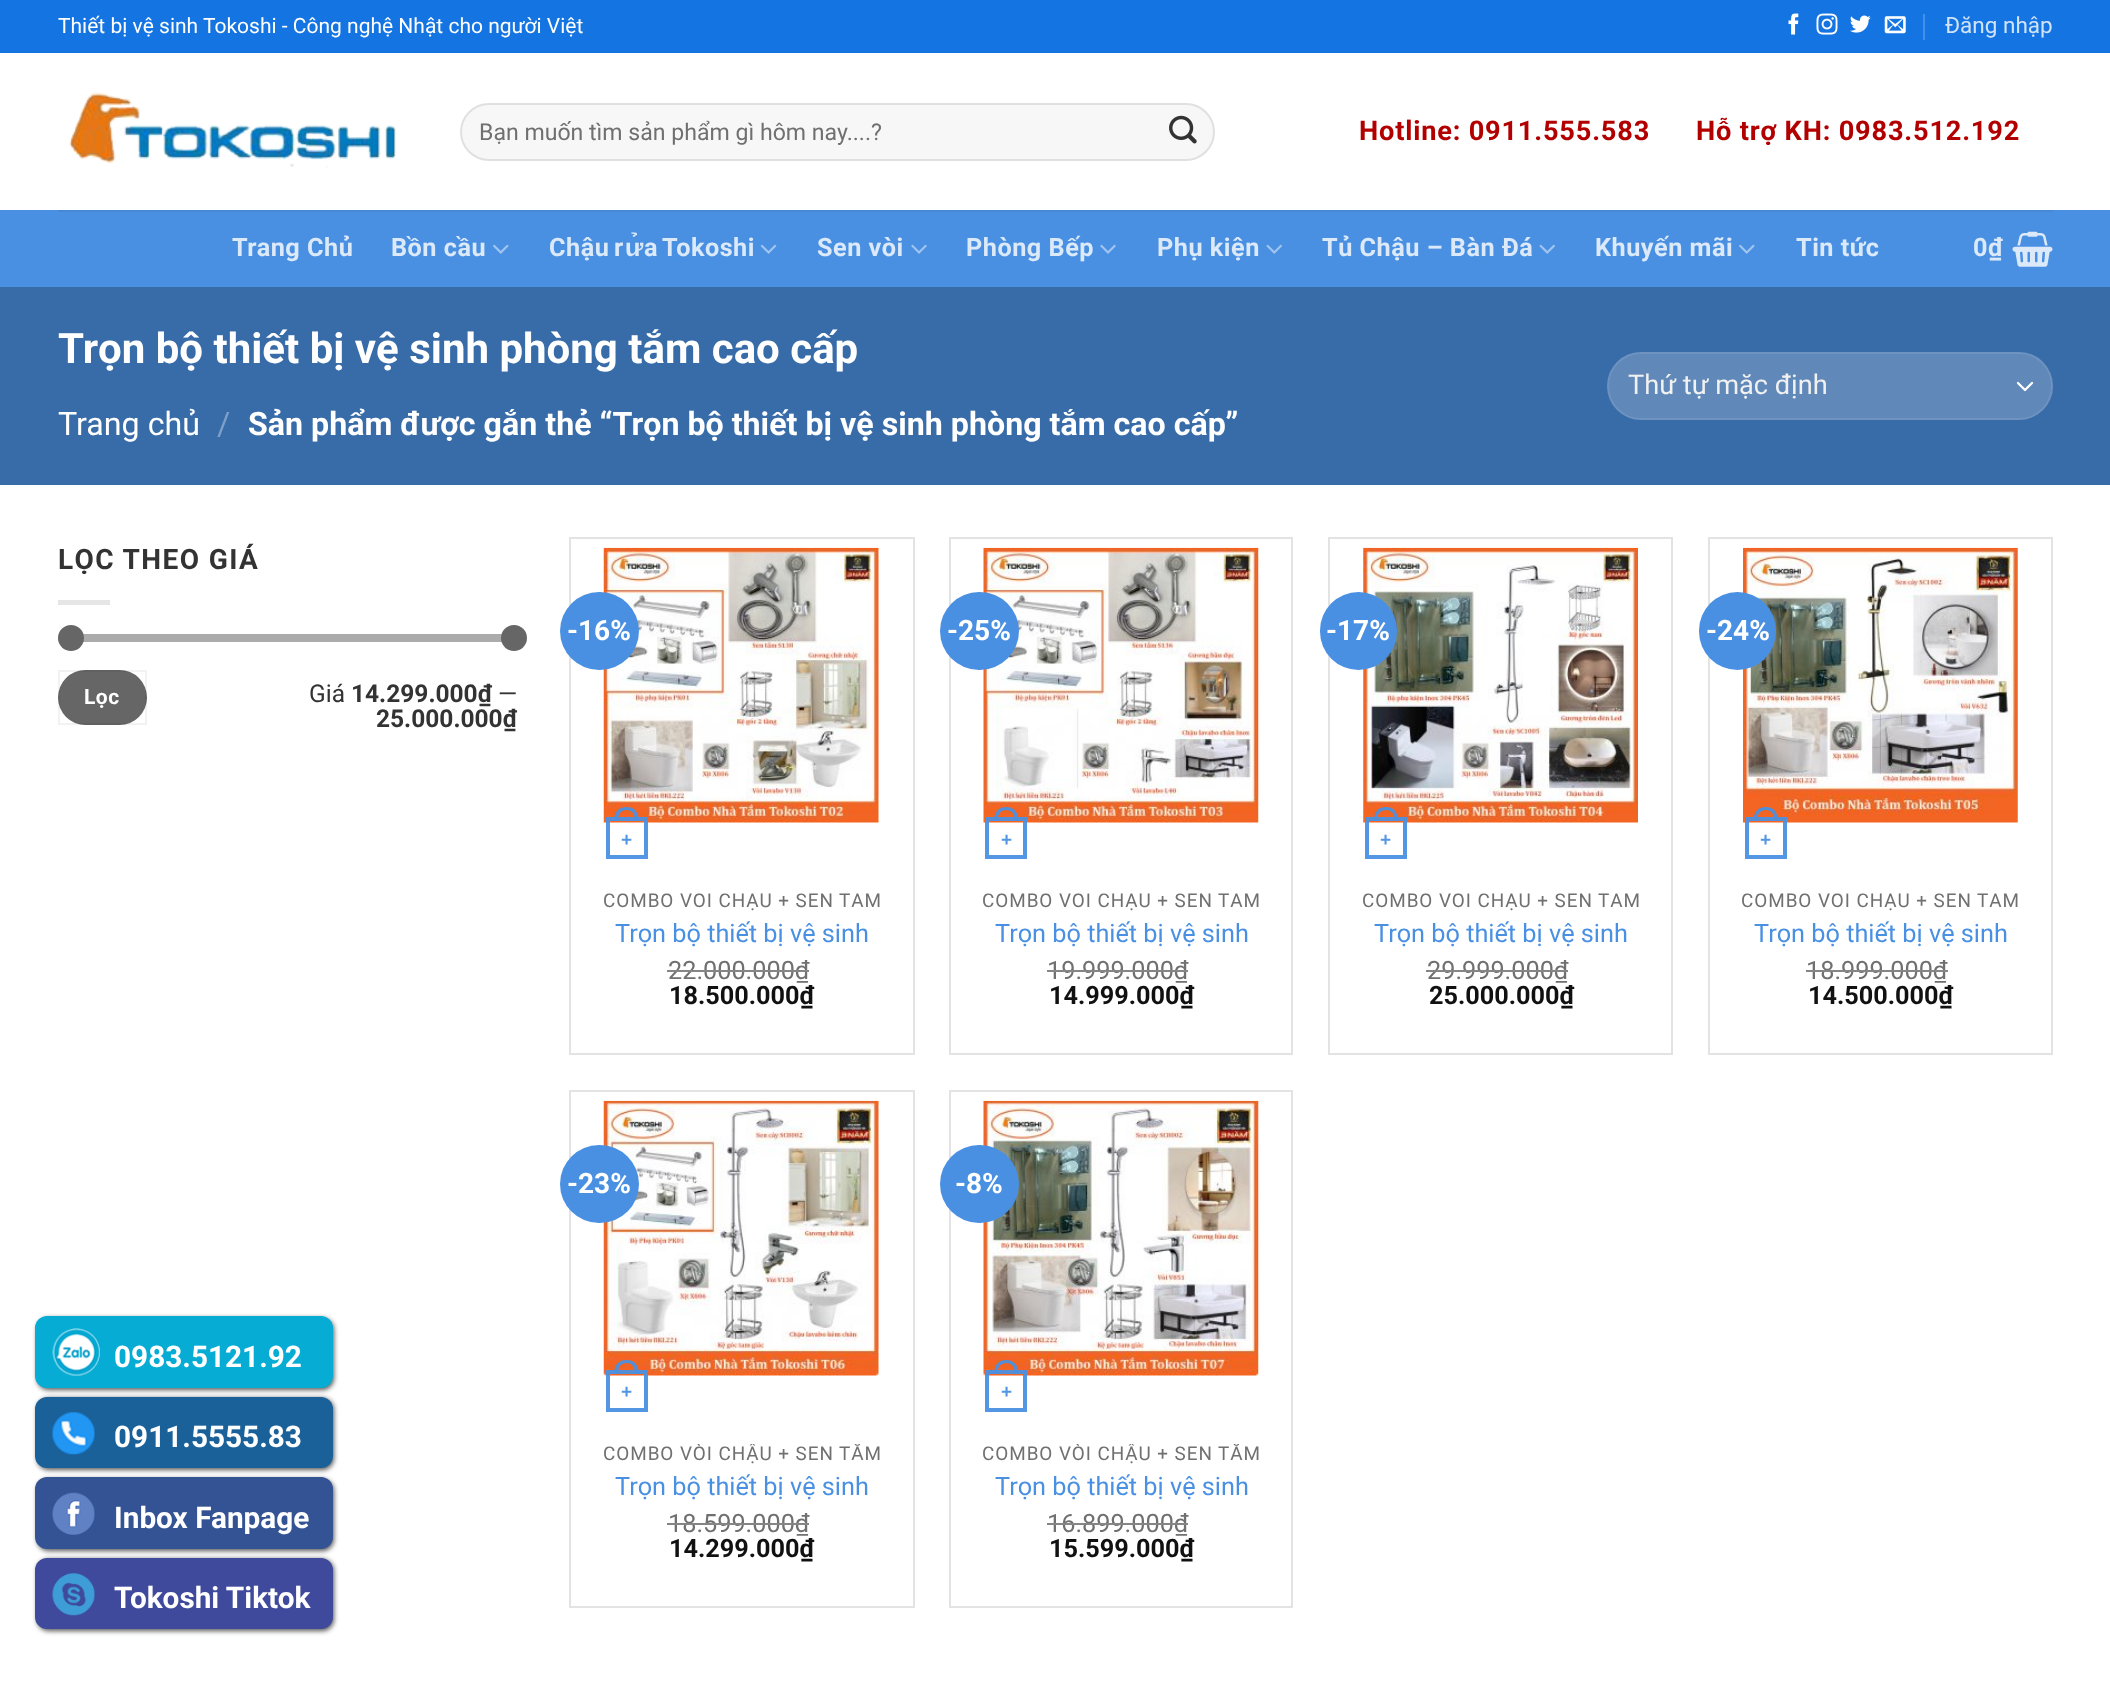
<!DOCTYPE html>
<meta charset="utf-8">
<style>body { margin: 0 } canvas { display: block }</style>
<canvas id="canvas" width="2110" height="1690"></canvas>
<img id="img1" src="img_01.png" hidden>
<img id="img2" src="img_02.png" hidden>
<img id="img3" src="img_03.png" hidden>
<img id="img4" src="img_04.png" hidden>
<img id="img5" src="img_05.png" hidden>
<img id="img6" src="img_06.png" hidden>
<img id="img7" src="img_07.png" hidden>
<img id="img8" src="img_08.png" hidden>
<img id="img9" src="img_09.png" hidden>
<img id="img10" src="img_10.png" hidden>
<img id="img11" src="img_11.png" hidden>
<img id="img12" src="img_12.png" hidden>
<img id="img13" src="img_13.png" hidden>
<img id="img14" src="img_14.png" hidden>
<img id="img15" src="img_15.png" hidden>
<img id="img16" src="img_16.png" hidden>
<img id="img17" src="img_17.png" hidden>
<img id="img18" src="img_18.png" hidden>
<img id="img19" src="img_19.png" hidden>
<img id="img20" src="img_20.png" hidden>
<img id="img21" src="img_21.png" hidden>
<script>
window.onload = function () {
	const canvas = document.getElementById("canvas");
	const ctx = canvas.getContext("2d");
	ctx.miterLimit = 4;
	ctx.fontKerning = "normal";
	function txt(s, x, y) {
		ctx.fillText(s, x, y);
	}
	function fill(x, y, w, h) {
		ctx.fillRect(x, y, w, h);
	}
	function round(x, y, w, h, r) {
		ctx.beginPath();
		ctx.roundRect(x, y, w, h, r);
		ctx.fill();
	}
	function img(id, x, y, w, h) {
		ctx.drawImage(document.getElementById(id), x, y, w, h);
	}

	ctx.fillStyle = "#FFFFFF";
	fill(0, 0, 2110, 1690);
	ctx.fillStyle = "#1474E2";
	fill(0, 0, 2110, 53);
	img("img1", 1788, 13, 11, 22);
	img("img2", 1816, 13, 22, 22);
	img("img3", 1850, 15, 21, 18);
	img("img4", 1884, 16, 22, 18);
	ctx.fillStyle = "#4390E8";
	fill(1923, 14, 2, 26);
	img("img5", 69, 92, 327, 76);
	ctx.fillStyle = "#F7F7F7";
	round(460, 103, 755, 58, 29);
	ctx.beginPath();
	ctx.roundRect(461, 104, 753, 56, 28);
	ctx.strokeStyle = "rgba(0, 0, 0, 0.09)";
	ctx.lineWidth = 2;
	ctx.stroke();
	img("img6", 1169, 115, 28, 29);
	ctx.fillStyle = "#4A90E2";
	fill(0, 210, 2110, 77);
	ctx.fillStyle = "#4887D1";
	fill(58, 210, 1995, 2);
	img("img7", 493, 244, 16, 10);
	img("img8", 760, 244, 17, 10);
	img("img9", 911, 244, 16, 10);
	img("img9", 1100, 244, 16, 10);
	img("img10", 1266, 244, 16, 10);
	img("img10", 1539, 244, 16, 10);
	img("img7", 1739, 244, 16, 10);
	img("img11", 2012, 231, 41, 36);
	ctx.fillStyle = "#386CA9";
	fill(0, 287, 2110, 198);
	ctx.fillStyle = "#6089BA";
	round(1607, 352, 446, 68, 34);
	ctx.beginPath();
	ctx.moveTo(2018, 383);
	ctx.lineTo(2025, 390);
	ctx.lineTo(2032, 383);
	ctx.strokeStyle = "#FFFFFF";
	ctx.lineWidth = 2.3;
	ctx.lineCap = "round";
	ctx.lineJoin = "round";
	ctx.stroke();
	ctx.beginPath();
	ctx.roundRect(1608, 353, 444, 66, 33);
	ctx.strokeStyle = "rgba(255, 255, 255, 0.09)";
	ctx.lineWidth = 2;
	ctx.lineJoin = "miter";
	ctx.stroke();
	ctx.fillStyle = "#E6E6E6";
	fill(58, 600, 52, 5);
	ctx.fillStyle = "#F1F1F1";
	round(58, 634, 460, 8, 4);
	ctx.fillStyle = "rgba(102, 102, 102, 0.5)";
	round(58, 634, 460, 8, 4);
	ctx.fillStyle = "#666666";
	ctx.beginPath();
	ctx.arc(71, 638, 13, 0, Math.PI * 2);
	ctx.fill();
	ctx.beginPath();
	ctx.arc(514, 638, 13, 0, Math.PI * 2);
	ctx.fill();
	round(58, 670, 89, 55, 27.5);
	ctx.strokeStyle = "rgba(0, 0, 0, 0.05)";
	ctx.strokeRect(59, 671, 87, 53);
	ctx.strokeStyle = "#E3E3E3";
	ctx.strokeRect(570, 538, 344, 516);
	img("img12", 603, 547, 276, 276);
	ctx.fillStyle = "#4A90E2";
	round(560, 592, 79, 78, 39);
	ctx.strokeStyle = "rgba(74, 144, 226, 0.95)";
	ctx.lineWidth = 4;
	ctx.strokeRect(608, 819, 38, 38);
	ctx.fillStyle = "rgba(74, 144, 226, 0.95)";
	ctx.beginPath();
	ctx.moveTo(626.5, 807);
	ctx.bezierCurveTo(635, 807, 639, 813, 639, 821);
	ctx.lineTo(614, 821);
	ctx.bezierCurveTo(614, 813, 618, 807, 626.5, 807);
	ctx.closePath();
	ctx.moveTo(626.5, 810);
	ctx.bezierCurveTo(633, 810, 635, 815, 635, 821);
	ctx.lineTo(618, 821);
	ctx.bezierCurveTo(618, 815, 620, 810, 626.5, 810);
	ctx.closePath();
	ctx.fill("evenodd");
	ctx.strokeStyle = "#E3E3E3";
	ctx.lineWidth = 2;
	ctx.strokeRect(950, 538, 342, 516);
	img("img13", 983, 547, 276, 276);
	ctx.fillStyle = "#4A90E2";
	round(940, 592, 79, 78, 39);
	ctx.strokeStyle = "rgba(74, 144, 226, 0.95)";
	ctx.lineWidth = 4;
	ctx.strokeRect(987, 819, 38, 38);
	ctx.fillStyle = "rgba(74, 144, 226, 0.95)";
	ctx.beginPath();
	ctx.moveTo(1006, 807);
	ctx.bezierCurveTo(1014.5, 807, 1018.5, 813, 1018.5, 821);
	ctx.lineTo(994, 821);
	ctx.bezierCurveTo(994, 813, 998, 807, 1006, 807);
	ctx.closePath();
	ctx.moveTo(1006, 810);
	ctx.bezierCurveTo(1012.5, 810, 1015, 815, 1015, 821);
	ctx.lineTo(997.5, 821);
	ctx.bezierCurveTo(997.5, 815, 1000, 810, 1006, 810);
	ctx.closePath();
	ctx.fill("evenodd");
	ctx.strokeStyle = "#E3E3E3";
	ctx.lineWidth = 2;
	ctx.strokeRect(1329, 538, 343, 516);
	img("img14", 1363, 547, 275, 276);
	ctx.fillStyle = "#4A90E2";
	round(1320, 592, 77, 78, 38.5);
	ctx.strokeStyle = "rgba(74, 144, 226, 0.95)";
	ctx.lineWidth = 4;
	ctx.strokeRect(1367, 819, 38, 38);
	ctx.fillStyle = "rgba(74, 144, 226, 0.95)";
	ctx.beginPath();
	ctx.moveTo(1386, 807);
	ctx.bezierCurveTo(1394.5, 807, 1398, 813, 1398, 821);
	ctx.lineTo(1374, 821);
	ctx.bezierCurveTo(1374, 813, 1377.5, 807, 1386, 807);
	ctx.closePath();
	ctx.moveTo(1386, 810);
	ctx.bezierCurveTo(1392.5, 810, 1395, 815, 1395, 821);
	ctx.lineTo(1377, 821);
	ctx.bezierCurveTo(1377, 815, 1379.5, 810, 1386, 810);
	ctx.closePath();
	ctx.fill("evenodd");
	ctx.strokeStyle = "#E3E3E3";
	ctx.lineWidth = 2;
	ctx.strokeRect(1709, 538, 343, 516);
	img("img15", 1743, 547, 275, 276);
	ctx.fillStyle = "#4A90E2";
	round(1699, 592, 77, 78, 38.5);
	ctx.strokeStyle = "rgba(74, 144, 226, 0.95)";
	ctx.lineWidth = 4;
	ctx.strokeRect(1747, 819, 38, 38);
	ctx.fillStyle = "#528ED8";
	ctx.beginPath();
	ctx.moveTo(1766, 807);
	ctx.bezierCurveTo(1774, 807, 1778, 813, 1778, 821);
	ctx.lineTo(1753.5, 821);
	ctx.bezierCurveTo(1753.5, 813, 1757.5, 807, 1766, 807);
	ctx.closePath();
	ctx.moveTo(1766, 810);
	ctx.bezierCurveTo(1772, 810, 1774.5, 815, 1774.5, 821);
	ctx.lineTo(1757, 821);
	ctx.bezierCurveTo(1757, 815, 1759.5, 810, 1766, 810);
	ctx.closePath();
	ctx.fill("evenodd");
	ctx.strokeStyle = "#E3E3E3";
	ctx.lineWidth = 2;
	ctx.strokeRect(570, 1091, 344, 516);
	img("img16", 603, 1100, 276, 276);
	ctx.fillStyle = "#4A90E2";
	round(560, 1145, 79, 78, 39);
	ctx.strokeStyle = "rgba(74, 144, 226, 0.95)";
	ctx.lineWidth = 4;
	ctx.strokeRect(608, 1372, 38, 38);
	ctx.fillStyle = "rgba(74, 144, 226, 0.95)";
	ctx.beginPath();
	ctx.moveTo(626.5, 1360);
	ctx.bezierCurveTo(635, 1360, 639, 1366, 639, 1374);
	ctx.lineTo(614, 1374);
	ctx.bezierCurveTo(614, 1366, 618, 1360, 626.5, 1360);
	ctx.closePath();
	ctx.moveTo(626.5, 1363);
	ctx.bezierCurveTo(633, 1363, 635, 1368, 635, 1374);
	ctx.lineTo(618, 1374);
	ctx.bezierCurveTo(618, 1368, 620, 1363, 626.5, 1363);
	ctx.closePath();
	ctx.fill("evenodd");
	ctx.strokeStyle = "#E3E3E3";
	ctx.lineWidth = 2;
	ctx.strokeRect(950, 1091, 342, 516);
	img("img17", 983, 1100, 276, 276);
	ctx.fillStyle = "#4A90E2";
	round(940, 1145, 79, 78, 39);
	ctx.strokeStyle = "rgba(74, 144, 226, 0.95)";
	ctx.lineWidth = 4;
	ctx.strokeRect(987, 1372, 38, 38);
	ctx.fillStyle = "rgba(74, 144, 226, 0.95)";
	ctx.beginPath();
	ctx.moveTo(1006, 1360);
	ctx.bezierCurveTo(1014.5, 1360, 1018.5, 1366, 1018.5, 1374);
	ctx.lineTo(994, 1374);
	ctx.bezierCurveTo(994, 1366, 998, 1360, 1006, 1360);
	ctx.closePath();
	ctx.moveTo(1006, 1363);
	ctx.bezierCurveTo(1012.5, 1363, 1015, 1368, 1015, 1374);
	ctx.lineTo(997.5, 1374);
	ctx.bezierCurveTo(997.5, 1368, 1000, 1363, 1006, 1363);
	ctx.closePath();
	ctx.fill("evenodd");
	ctx.fillStyle = "rgba(0, 0, 0, 0.66)";
	ctx.filter = "blur(2.5px)";
	ctx.beginPath();
	ctx.roundRect(37, 1318, 297, 72, 12);
	ctx.fill();
	ctx.filter = "none";
	ctx.fillStyle = "#07ACD4";
	round(35, 1316, 298, 72, 12);
	img("img18", 52, 1328, 48, 48);
	ctx.fillStyle = "rgba(0, 0, 0, 0.66)";
	ctx.filter = "blur(2.5px)";
	ctx.beginPath();
	ctx.roundRect(37, 1398, 297, 72, 12);
	ctx.fill();
	ctx.filter = "none";
	ctx.fillStyle = "#1A619A";
	round(35, 1397, 298, 71, 12);
	img("img19", 52, 1412, 43, 43);
	ctx.fillStyle = "rgba(0, 0, 0, 0.66)";
	ctx.filter = "blur(2.5px)";
	ctx.beginPath();
	ctx.roundRect(37, 1479, 297, 72, 12);
	ctx.fill();
	ctx.filter = "none";
	ctx.fillStyle = "#345394";
	round(35, 1477, 298, 72, 12);
	img("img20", 52, 1492, 43, 43);
	ctx.fillStyle = "rgba(0, 0, 0, 0.66)";
	ctx.filter = "blur(2.5px)";
	ctx.beginPath();
	ctx.roundRect(37, 1559, 297, 72, 12);
	ctx.fill();
	ctx.filter = "none";
	ctx.fillStyle = "#3F4A9C";
	round(35, 1558, 298, 71, 12);
	img("img21", 52, 1573, 43, 43);
	ctx.font = "21px Roboto";
	ctx.fillStyle = "#FFFFFF";
	txt("Thiết bị vệ sinh Tokoshi - Công nghệ Nhật cho người Việt", 58, 33);
	ctx.font = "22.5px Roboto";
	ctx.fillStyle = "#D0E3F9";
	txt("Đăng nhập", 1945, 33);
	ctx.font = "23.1px Roboto";
	ctx.fillStyle = "#707070";
	txt("Bạn muốn tìm sản phẩm gì hôm nay....?", 479, 140);
	ctx.letterSpacing = "0.8px";
	ctx.font = "bold 27.2px Roboto";
	ctx.fillStyle = "#B20000";
	txt("Hotline: 0911.555.583", 1359, 140);
	txt("Hỗ trợ KH: 0983.512.192", 1696, 140);
	ctx.letterSpacing = "0.5px";
	ctx.font = "bold 25.25px Roboto";
	ctx.fillStyle = "#DBE9F9";
	txt("Trang Chủ", 232, 256);
	txt("Bồn cầu", 391, 256);
	ctx.wordSpacing = "-2px";
	txt("Chậu r", 549, 256);
	ctx.wordSpacing = "0px";
	ctx.font = "bold 25.25px Liberation Sans";
	txt("ử", 625, 256);
	ctx.wordSpacing = "-2px";
	ctx.font = "bold 25.25px Roboto";
	txt("a Tokoshi", 644, 256);
	ctx.wordSpacing = "0px";
	txt("Sen vòi", 817, 256);
	txt("Phòng Bếp", 966, 256);
	txt("Phụ kiện", 1157, 256);
	txt("Tủ Chậu – Bàn Đá", 1322, 256);
	txt("Khuyến mãi", 1595, 256);
	txt("Tin tức", 1796, 256);
	txt("0₫", 1973, 256);
	ctx.letterSpacing = "0px";
	ctx.font = "bold 42px Roboto";
	ctx.fillStyle = "#FFFFFF";
	txt("Trọn bộ thiết bị vệ sinh phòng tắm cao cấp", 58, 363);
	ctx.font = "32.2px Roboto";
	txt("Trang chủ", 58, 435);
	ctx.fillStyle = "#7E9FC7";
	txt("/", 217, 435);
	ctx.font = "bold 32.2px Roboto";
	ctx.fillStyle = "#FFFFFF";
	txt("Sản phẩm được gắn thẻ “Trọn bộ thiết bị vệ sinh phòng tắm cao cấp”", 248, 435);
	ctx.font = "27.2px Roboto";
	ctx.fillStyle = "#F1F1F1";
	txt("Thứ tự mặc định", 1628, 394);
	ctx.letterSpacing = "1.4px";
	ctx.font = "bold 28px Roboto";
	ctx.fillStyle = "#333333";
	txt("LỌC THEO GIÁ", 58, 569);
	ctx.letterSpacing = "0.5px";
	ctx.font = "bold 21px Roboto";
	ctx.fillStyle = "#FFFFFF";
	txt("Lọc", 84, 704);
	ctx.letterSpacing = "0px";
	ctx.font = "24.5px Roboto";
	ctx.fillStyle = "#333333";
	txt("Giá", 309, 702);
	ctx.font = "bold 24.5px Roboto";
	txt("14.299.000₫", 351, 702);
	ctx.font = "24.5px Roboto";
	txt("—", 498, 702);
	ctx.font = "bold 24.5px Roboto";
	txt("25.000.000₫", 376, 727);
	ctx.font = "bold 28px Roboto";
	ctx.fillStyle = "#FFFFFF";
	txt("-16%", 567, 640);
	ctx.font = "bold 19px Liberation Sans";
	ctx.fillStyle = "#5396E3";
	txt("+", 621, 846);
	ctx.save();
	ctx.beginPath();
	ctx.rect(597, 893, 290, 21);
	ctx.clip();
	ctx.letterSpacing = "0.95px";
	ctx.font = "18.9px Roboto";
	ctx.fillStyle = "#707070";
	txt("COMBO VÒI CHẬU + SEN TẮM", 603, 907);
	ctx.restore();
	ctx.font = "25.25px Roboto";
	ctx.fillStyle = "#4A90E2";
	txt("Trọn bộ thiết bị vệ sinh", 615, 942);
	ctx.fillStyle = "#707070";
	txt("22.000.000₫", 668, 979);
	ctx.fillStyle = "#858585";
	fill(667, 970, 142, 2);
	ctx.font = "bold 25.25px Roboto";
	ctx.fillStyle = "#111111";
	txt("18.500.000₫", 669, 1004);
	ctx.font = "bold 28px Roboto";
	ctx.fillStyle = "#FFFFFF";
	txt("-25%", 947, 640);
	ctx.font = "bold 19px Liberation Sans";
	ctx.fillStyle = "#5396E3";
	txt("+", 1001, 846);
	ctx.save();
	ctx.beginPath();
	ctx.rect(977, 893, 288, 21);
	ctx.clip();
	ctx.letterSpacing = "0.95px";
	ctx.font = "18.9px Roboto";
	ctx.fillStyle = "#707070";
	txt("COMBO VÒI CHẬU + SEN TẮM", 982, 907);
	ctx.restore();
	ctx.font = "25.25px Roboto";
	ctx.fillStyle = "#4A90E2";
	txt("Trọn bộ thiết bị vệ sinh", 995, 942);
	ctx.fillStyle = "#707070";
	txt("19.999.000₫", 1047, 979);
	ctx.fillStyle = "#858585";
	fill(1047, 970, 141, 2);
	ctx.font = "bold 25.25px Roboto";
	ctx.fillStyle = "#111111";
	txt("14.999.000₫", 1049, 1004);
	ctx.font = "bold 28px Roboto";
	ctx.fillStyle = "#FFFFFF";
	txt("-17%", 1326, 640);
	ctx.font = "bold 19px Liberation Sans";
	ctx.fillStyle = "#5396E3";
	txt("+", 1380, 846);
	ctx.save();
	ctx.beginPath();
	ctx.rect(1356, 893, 289, 21);
	ctx.clip();
	ctx.letterSpacing = "0.95px";
	ctx.font = "18.9px Roboto";
	ctx.fillStyle = "#707070";
	txt("COMBO VÒI CHẬU + SEN TẮM", 1362, 907);
	ctx.restore();
	ctx.font = "25.25px Roboto";
	ctx.fillStyle = "#4A90E2";
	txt("Trọn bộ thiết bị vệ sinh", 1374, 942);
	ctx.fillStyle = "#707070";
	txt("29.999.000₫", 1427, 979);
	ctx.fillStyle = "#858585";
	fill(1426, 970, 142, 2);
	ctx.font = "bold 25.25px Roboto";
	ctx.fillStyle = "#111111";
	txt("25.000.000₫", 1429, 1004);
	ctx.font = "bold 28px Roboto";
	ctx.fillStyle = "#FFFFFF";
	txt("-24%", 1706, 640);
	ctx.font = "bold 19px Liberation Sans";
	ctx.fillStyle = "#5396E3";
	txt("+", 1760, 846);
	ctx.save();
	ctx.beginPath();
	ctx.rect(1736, 893, 289, 21);
	ctx.clip();
	ctx.letterSpacing = "0.95px";
	ctx.font = "18.9px Roboto";
	ctx.fillStyle = "#707070";
	txt("COMBO VÒI CHẬU + SEN TẮM", 1741, 907);
	ctx.restore();
	ctx.font = "25.25px Roboto";
	ctx.fillStyle = "#4A90E2";
	txt("Trọn bộ thiết bị vệ sinh", 1754, 942);
	ctx.fillStyle = "#707070";
	txt("18.999.000₫", 1806, 979);
	ctx.fillStyle = "#858585";
	fill(1806, 970, 142, 2);
	ctx.font = "bold 25.25px Roboto";
	ctx.fillStyle = "#111111";
	txt("14.500.000₫", 1808, 1004);
	ctx.font = "bold 28px Roboto";
	ctx.fillStyle = "#FFFFFF";
	txt("-23%", 567, 1193);
	ctx.font = "bold 19px Liberation Sans";
	ctx.fillStyle = "#5396E3";
	txt("+", 621, 1398);
	ctx.save();
	ctx.beginPath();
	ctx.rect(597, 1444, 290, 23);
	ctx.clip();
	ctx.letterSpacing = "0.95px";
	ctx.font = "18.9px Roboto";
	ctx.fillStyle = "#707070";
	txt("COMBO VÒI CHẬU + SEN TẮM", 603, 1460);
	ctx.restore();
	ctx.font = "25.25px Roboto";
	ctx.fillStyle = "#4A90E2";
	txt("Trọn bộ thiết bị vệ sinh", 615, 1495);
	ctx.fillStyle = "#707070";
	txt("18.599.000₫", 668, 1532);
	ctx.fillStyle = "#858585";
	fill(667, 1523, 142, 2);
	ctx.font = "bold 25.25px Roboto";
	ctx.fillStyle = "#111111";
	txt("14.299.000₫", 669, 1557);
	ctx.font = "bold 28px Roboto";
	ctx.fillStyle = "#FFFFFF";
	txt("-8%", 955, 1193);
	ctx.font = "bold 19px Liberation Sans";
	ctx.fillStyle = "#5396E3";
	txt("+", 1001, 1398);
	ctx.save();
	ctx.beginPath();
	ctx.rect(977, 1444, 288, 23);
	ctx.clip();
	ctx.letterSpacing = "0.95px";
	ctx.font = "18.9px Roboto";
	ctx.fillStyle = "#707070";
	txt("COMBO VÒI CHẬU + SEN TẮM", 982, 1460);
	ctx.restore();
	ctx.font = "25.25px Roboto";
	ctx.fillStyle = "#4A90E2";
	txt("Trọn bộ thiết bị vệ sinh", 995, 1495);
	ctx.fillStyle = "#707070";
	txt("16.899.000₫", 1047, 1532);
	ctx.fillStyle = "#858585";
	fill(1047, 1523, 141, 2);
	ctx.font = "bold 25.25px Roboto";
	ctx.fillStyle = "#111111";
	txt("15.599.000₫", 1049, 1557);
	ctx.font = "bold 29.75px Roboto";
	ctx.fillStyle = "#FFFFFF";
	txt("0983.5121.92", 114, 1367);
	txt("0911.5555.83", 114, 1447);
	txt("Inbox Fanpage", 114, 1528);
	txt("Tokoshi Tiktok", 114, 1608);
};
</script>
